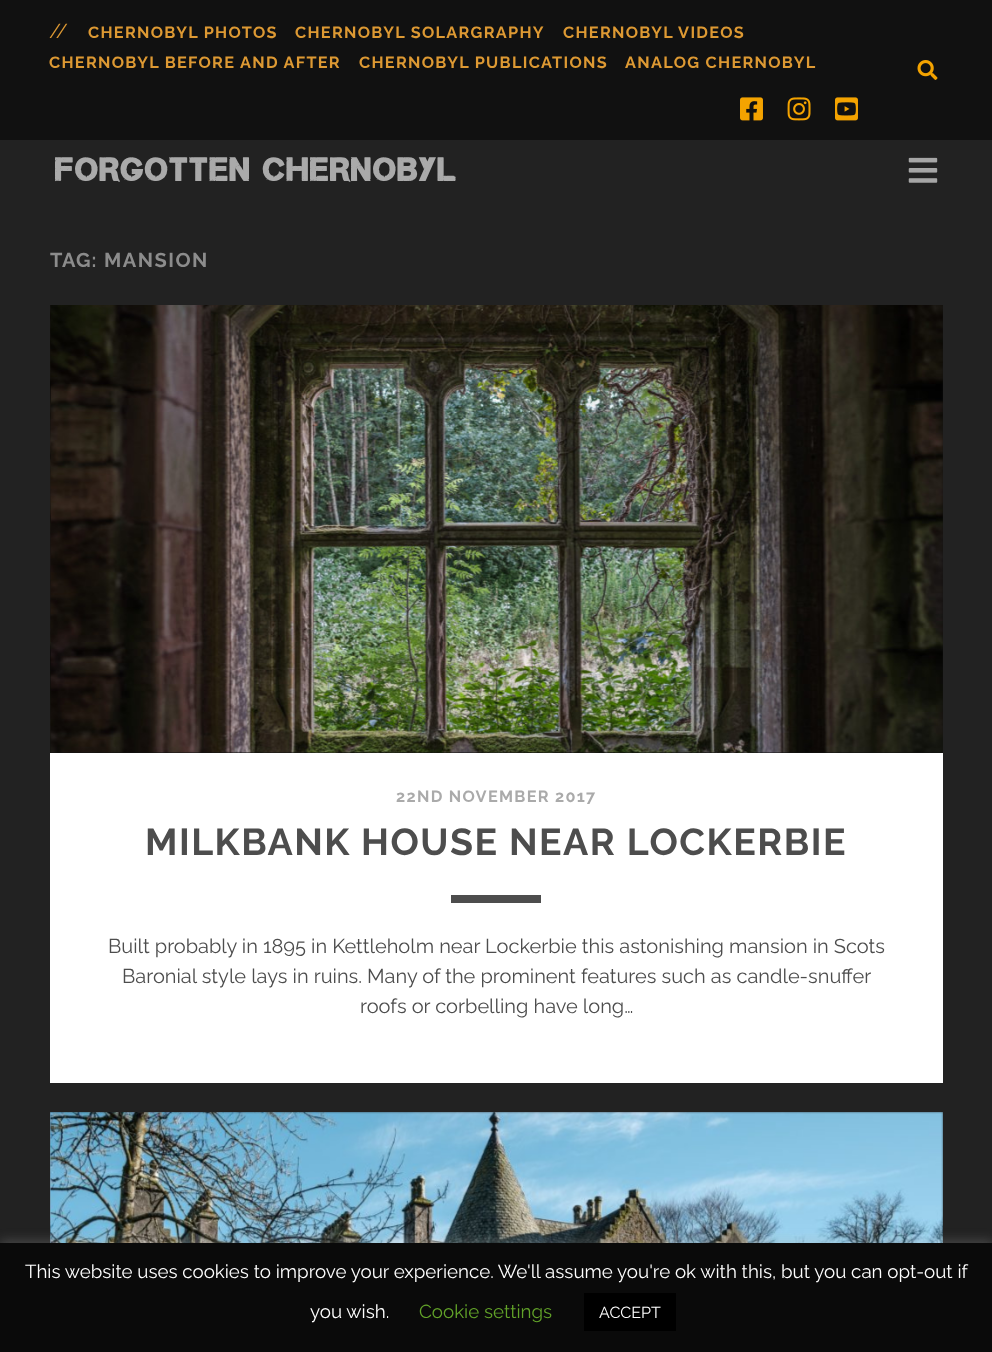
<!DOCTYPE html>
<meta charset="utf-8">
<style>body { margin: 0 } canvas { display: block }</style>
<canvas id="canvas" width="992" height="1352"></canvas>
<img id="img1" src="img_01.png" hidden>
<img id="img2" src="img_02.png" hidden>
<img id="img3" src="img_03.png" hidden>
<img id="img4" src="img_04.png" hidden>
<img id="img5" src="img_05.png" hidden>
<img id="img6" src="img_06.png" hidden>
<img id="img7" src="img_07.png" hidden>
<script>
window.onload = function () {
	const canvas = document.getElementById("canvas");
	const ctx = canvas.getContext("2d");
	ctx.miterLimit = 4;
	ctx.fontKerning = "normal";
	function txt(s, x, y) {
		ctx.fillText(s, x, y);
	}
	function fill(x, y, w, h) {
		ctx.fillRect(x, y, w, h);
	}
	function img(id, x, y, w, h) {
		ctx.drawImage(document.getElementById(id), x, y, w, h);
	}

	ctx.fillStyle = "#222222";
	fill(0, 0, 992, 1352);
	ctx.fillStyle = "#111111";
	fill(0, 0, 992, 140);
	img("img1", 917, 60, 21, 20);
	img("img2", 740, 97, 23, 24);
	img("img3", 787, 97, 24, 24);
	img("img4", 835, 97, 23, 24);
	img("img5", 908, 157, 30, 26);
	fill(50, 305, 893, 448);
	img("img6", 50, 305, 893, 448);
	ctx.fillStyle = "#FFFFFF";
	fill(50, 753, 893, 330);
	ctx.fillStyle = "#4D4D4D";
	fill(451, 895, 90, 8);
	img("img7", 50, 1112, 893, 131);
	ctx.fillStyle = "rgba(172, 171, 171, 0.3)";
	ctx.filter = "blur(6px)";
	ctx.beginPath();
	ctx.rect(0, 1241, 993, 110);
	ctx.fill();
	ctx.filter = "none";
	ctx.fillStyle = "#0A0A0A";
	fill(0, 1243, 992, 109);
	ctx.fillStyle = "#000000";
	fill(584, 1293, 92, 38);
	ctx.font = "20px Raleway";
	ctx.fillStyle = "#DD9933";
	txt("//", 49, 38);
	ctx.letterSpacing = "1.3px";
	ctx.font = "bold 16.25px Raleway";
	txt("CHERNOBYL PHOTOS", 88, 38);
	txt("CHERNOBYL SOLARGRAPHY", 295, 38);
	txt("CHERNOBYL VIDEOS", 563, 38);
	txt("CHERNOBYL BEFORE AND AFTER", 49, 68);
	txt("CHERNOBYL PUBLICATIONS", 359, 68);
	txt("ANALOG CHERNOBYL", 625, 68);
	ctx.letterSpacing = "2px";
	ctx.font = "bold 32.5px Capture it";
	ctx.fillStyle = "#AAAAAA";
	txt("FORGOTTEN CHERNOBYL", 55, 181);
	ctx.letterSpacing = "1px";
	ctx.font = "bold 20px Raleway";
	ctx.fillStyle = "#8C8C8C";
	txt("TAG:", 50, 267);
	ctx.letterSpacing = "1.5px";
	txt("MANSION", 104, 267);
	ctx.letterSpacing = "1.3px";
	ctx.font = "bold 16.25px Raleway";
	ctx.fillStyle = "#AAAAAA";
	txt("22ND NOVEMBER 2017", 396, 802);
	ctx.letterSpacing = "1.5px";
	ctx.font = "bold 37.5px Raleway";
	ctx.fillStyle = "#4D4D4D";
	txt("MILKBANK HOUSE NEAR LOCKERBIE", 145, 855);
	ctx.letterSpacing = "0px";
	ctx.font = "20px Raleway";
	txt("Built probably in 1895 in Kettleholm near Lockerbie this astonishing mansion in Scots", 108, 953);
	txt("Baronial style lays in ruins. Many of the prominent features such as candle-snuffer", 122, 983);
	txt("roofs or corbelling have long…", 360, 1013);
	ctx.font = "18.75px Raleway";
	ctx.fillStyle = "#FFFFFF";
	txt("This website uses cookies to improve your experience. We'll assume you're ok with this, but you can opt-out if", 25, 1278);
	txt("you wish.", 310, 1318);
	ctx.fillStyle = "#62A329";
	txt("Cookie settings", 419, 1318);
	ctx.font = "16px Raleway";
	ctx.fillStyle = "#FFFFFF";
	txt("ACCEPT", 599, 1318);
};
</script>
